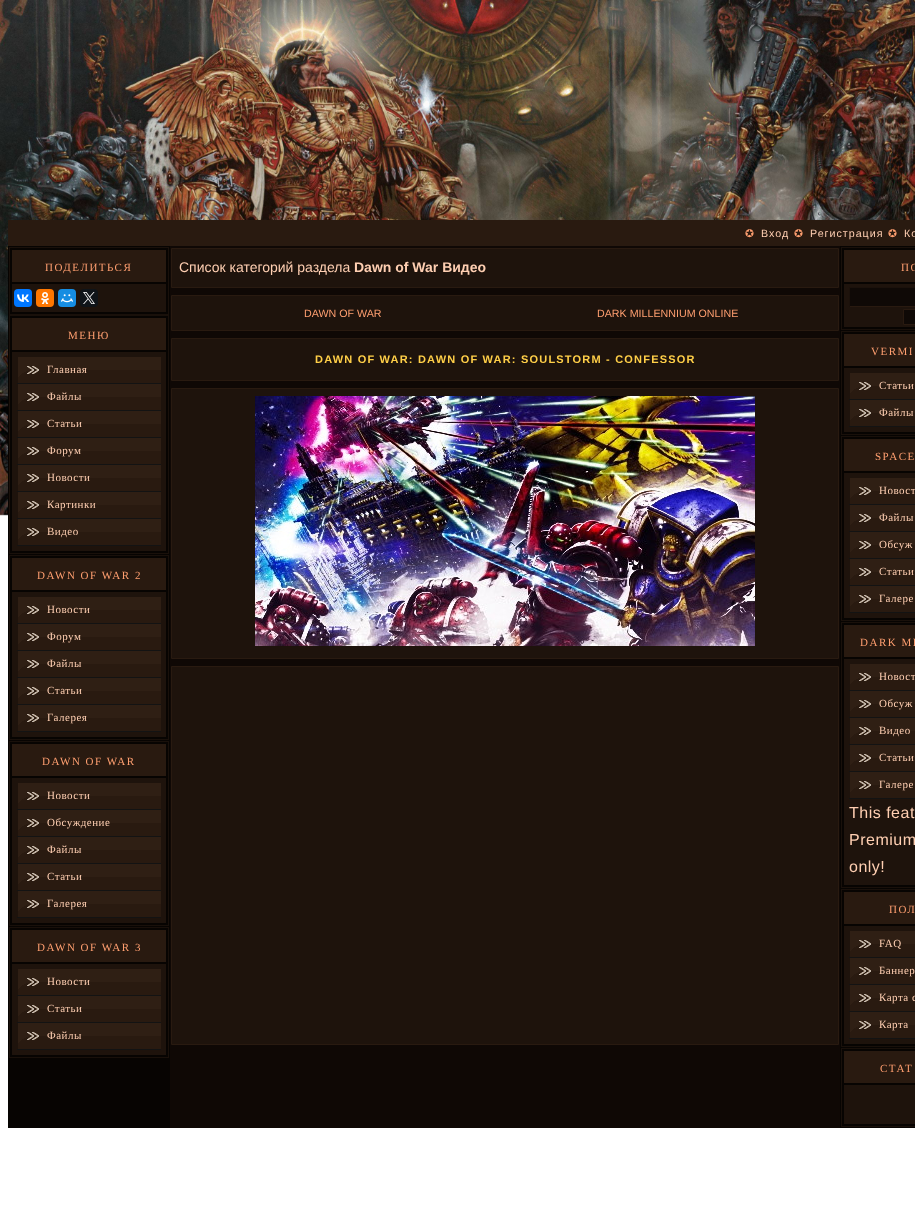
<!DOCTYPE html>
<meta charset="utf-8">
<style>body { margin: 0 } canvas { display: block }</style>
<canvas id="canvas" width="915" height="1221"></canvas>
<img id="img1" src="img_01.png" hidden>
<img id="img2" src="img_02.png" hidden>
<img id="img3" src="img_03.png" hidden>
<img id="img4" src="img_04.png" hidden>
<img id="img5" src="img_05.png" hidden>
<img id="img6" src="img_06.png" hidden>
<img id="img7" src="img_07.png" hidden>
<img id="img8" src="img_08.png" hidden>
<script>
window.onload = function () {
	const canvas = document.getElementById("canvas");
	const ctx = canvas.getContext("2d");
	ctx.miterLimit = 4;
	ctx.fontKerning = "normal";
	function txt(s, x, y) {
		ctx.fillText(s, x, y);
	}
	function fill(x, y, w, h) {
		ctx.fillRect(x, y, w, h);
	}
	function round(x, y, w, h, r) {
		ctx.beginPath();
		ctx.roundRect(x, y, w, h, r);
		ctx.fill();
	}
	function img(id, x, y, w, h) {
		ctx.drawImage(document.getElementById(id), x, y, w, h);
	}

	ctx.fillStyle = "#FFFFFF";
	fill(0, 0, 915, 1221);
	img("img1", 0, 0, 915, 516);
	ctx.fillStyle = "#291A10";
	fill(8, 220, 907, 26);
	ctx.fillStyle = "#070402";
	fill(8, 246, 162, 882);
	ctx.strokeStyle = "#19100A";
	ctx.strokeRect(9.5, 247.5, 159, 67);
	ctx.fillStyle = "#291A10";
	fill(12, 250, 154, 32);
	ctx.fillStyle = "#1E130C";
	fill(12, 284, 154, 28);
	ctx.fillStyle = "#0077FF";
	round(14, 289, 18, 18, 4);
	img("img2", 17, 294, 12, 8);
	ctx.fillStyle = "#FF7700";
	round(36, 289, 18, 18, 4);
	img("img3", 41, 292, 8, 12);
	ctx.fillStyle = "#168DE2";
	round(58, 289, 18, 18, 4);
	img("img4", 61, 294, 12, 9);
	ctx.fillStyle = "#0F1419";
	round(80, 289, 18, 18, 4);
	img("img5", 83, 292, 12, 12);
	ctx.strokeRect(9.5, 315.5, 159, 238);
	ctx.fillStyle = "#291A10";
	fill(12, 318, 154, 32);
	ctx.fillStyle = "#1E130C";
	fill(12, 352, 154, 199);
	ctx.fillStyle = "#131313";
	fill(17, 383, 144, 1);
	img("img6", 18, 357, 143, 26);
	fill(17, 410, 144, 1);
	img("img6", 18, 384, 143, 26);
	fill(17, 437, 144, 1);
	img("img6", 18, 411, 143, 26);
	fill(17, 464, 144, 1);
	img("img6", 18, 438, 143, 26);
	fill(17, 491, 144, 1);
	img("img6", 18, 465, 143, 26);
	fill(17, 518, 144, 1);
	img("img6", 18, 492, 143, 26);
	fill(17, 545, 144, 1);
	img("img6", 18, 519, 143, 26);
	ctx.strokeRect(9.5, 555.5, 159, 184);
	ctx.fillStyle = "#291A10";
	fill(12, 558, 154, 32);
	ctx.fillStyle = "#1E130C";
	fill(12, 592, 154, 145);
	ctx.fillStyle = "#131313";
	fill(17, 623, 144, 1);
	img("img6", 18, 597, 143, 26);
	fill(17, 650, 144, 1);
	img("img6", 18, 624, 143, 26);
	fill(17, 677, 144, 1);
	img("img6", 18, 651, 143, 26);
	fill(17, 704, 144, 1);
	img("img6", 18, 678, 143, 26);
	fill(17, 731, 144, 1);
	img("img6", 18, 705, 143, 26);
	ctx.strokeRect(9.5, 741.5, 159, 184);
	ctx.fillStyle = "#291A10";
	fill(12, 744, 154, 32);
	ctx.fillStyle = "#1E130C";
	fill(12, 778, 154, 145);
	ctx.fillStyle = "#131313";
	fill(17, 809, 144, 1);
	img("img6", 18, 783, 143, 26);
	fill(17, 836, 144, 1);
	img("img6", 18, 810, 143, 26);
	fill(17, 863, 144, 1);
	img("img6", 18, 837, 143, 26);
	fill(17, 890, 144, 1);
	img("img6", 18, 864, 143, 26);
	fill(17, 917, 144, 1);
	img("img6", 18, 891, 143, 26);
	ctx.strokeRect(9.5, 927.5, 159, 130);
	ctx.fillStyle = "#291A10";
	fill(12, 930, 154, 32);
	ctx.fillStyle = "#1E130C";
	fill(12, 964, 154, 91);
	ctx.fillStyle = "#131313";
	fill(17, 995, 144, 1);
	img("img6", 18, 969, 143, 26);
	fill(17, 1022, 144, 1);
	img("img6", 18, 996, 143, 26);
	fill(17, 1049, 144, 1);
	img("img6", 18, 1023, 143, 26);
	ctx.fillStyle = "#0F0805";
	fill(170, 246, 670, 882);
	ctx.fillStyle = "#1E130C";
	ctx.beginPath();
	ctx.rect(171.5, 248.5, 667, 39);
	ctx.fill();
	ctx.strokeStyle = "#291A10";
	ctx.stroke();
	ctx.beginPath();
	ctx.rect(171.5, 295.5, 667, 35);
	ctx.fill();
	ctx.stroke();
	ctx.beginPath();
	ctx.rect(171.5, 338.5, 667, 42);
	ctx.fill();
	ctx.stroke();
	ctx.beginPath();
	ctx.rect(171.5, 388.5, 667, 270);
	ctx.fill();
	ctx.stroke();
	img("img7", 255, 396, 500, 250);
	ctx.beginPath();
	ctx.rect(171.5, 666.5, 667, 378);
	ctx.fill();
	ctx.stroke();
	ctx.fillStyle = "#070402";
	fill(840, 246, 75, 882);
	ctx.strokeStyle = "#19100A";
	ctx.strokeRect(841.5, 247.5, 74, 82);
	ctx.fillStyle = "#291A10";
	fill(844, 250, 71, 32);
	ctx.fillStyle = "#1E130C";
	fill(844, 284, 71, 43);
	ctx.fillStyle = "#0F0906";
	fill(850, 288, 65, 18);
	ctx.fillStyle = "#1B110B";
	fill(849, 287, 66, 1);
	ctx.fillStyle = "#291A10";
	fill(849, 306, 66, 1);
	ctx.fillStyle = "#1B110B";
	fill(849, 287, 1, 20);
	ctx.fillStyle = "#0F0906";
	ctx.beginPath();
	ctx.rect(903.5, 309.5, 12, 15);
	ctx.fill();
	ctx.strokeStyle = "#291A10";
	ctx.stroke();
	ctx.strokeStyle = "#19100A";
	ctx.strokeRect(841.5, 331.5, 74, 103);
	ctx.fillStyle = "#291A10";
	fill(844, 334, 71, 32);
	ctx.fillStyle = "#1E130C";
	fill(844, 368, 71, 64);
	ctx.fillStyle = "#131313";
	fill(849, 399, 66, 1);
	img("img8", 850, 373, 65, 26);
	fill(849, 426, 66, 1);
	img("img8", 850, 400, 65, 26);
	ctx.strokeRect(841.5, 436.5, 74, 184);
	ctx.fillStyle = "#291A10";
	fill(844, 439, 71, 32);
	ctx.fillStyle = "#1E130C";
	fill(844, 473, 71, 145);
	ctx.fillStyle = "#131313";
	fill(849, 504, 66, 1);
	img("img8", 850, 478, 65, 26);
	fill(849, 531, 66, 1);
	img("img8", 850, 505, 65, 26);
	fill(849, 558, 66, 1);
	img("img8", 850, 532, 65, 26);
	fill(849, 585, 66, 1);
	img("img8", 850, 559, 65, 26);
	fill(849, 612, 66, 1);
	img("img8", 850, 586, 65, 26);
	ctx.strokeRect(841.5, 622.5, 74, 265);
	ctx.fillStyle = "#291A10";
	fill(844, 625, 71, 32);
	ctx.fillStyle = "#1E130C";
	fill(844, 659, 71, 226);
	ctx.fillStyle = "#131313";
	fill(849, 690, 66, 1);
	img("img8", 850, 664, 65, 26);
	fill(849, 717, 66, 1);
	img("img8", 850, 691, 65, 26);
	fill(849, 744, 66, 1);
	img("img8", 850, 718, 65, 26);
	fill(849, 771, 66, 1);
	img("img8", 850, 745, 65, 26);
	fill(849, 798, 66, 1);
	img("img8", 850, 772, 65, 26);
	ctx.strokeRect(841.5, 889.5, 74, 157);
	ctx.fillStyle = "#291A10";
	fill(844, 892, 71, 32);
	ctx.fillStyle = "#1E130C";
	fill(844, 926, 71, 118);
	ctx.fillStyle = "#131313";
	fill(849, 957, 66, 1);
	img("img8", 850, 931, 65, 26);
	fill(849, 984, 66, 1);
	img("img8", 850, 958, 65, 26);
	fill(849, 1011, 66, 1);
	img("img8", 850, 985, 65, 26);
	fill(849, 1038, 66, 1);
	img("img8", 850, 1012, 65, 26);
	ctx.strokeRect(841.5, 1048.5, 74, 78);
	ctx.fillStyle = "#291A10";
	fill(844, 1051, 71, 32);
	ctx.fillStyle = "#1E130C";
	fill(844, 1085, 71, 39);
	ctx.letterSpacing = "2px";
	ctx.font = "10.7px DejaVu Sans";
	ctx.fillStyle = "#FF9F70";
	txt("✪", 745, 237);
	ctx.letterSpacing = "1px";
	ctx.font = "10.7px Liberation Sans";
	ctx.fillStyle = "#FFCFB2";
	txt("Вход", 761, 237);
	ctx.letterSpacing = "2px";
	ctx.font = "10.7px DejaVu Sans";
	ctx.fillStyle = "#FF9F70";
	txt("✪", 794, 237);
	ctx.letterSpacing = "1px";
	ctx.font = "10.7px Liberation Sans";
	ctx.fillStyle = "#FFCFB2";
	txt("Регистрация", 810, 237);
	ctx.letterSpacing = "2px";
	ctx.font = "10.7px DejaVu Sans";
	ctx.fillStyle = "#FF9F70";
	txt("✪", 888, 237);
	ctx.letterSpacing = "1px";
	ctx.font = "10.7px Liberation Sans";
	ctx.fillStyle = "#FFCFB2";
	txt("Ко", 904, 237);
	ctx.letterSpacing = "1.5px";
	ctx.font = "11px Liberation Serif";
	ctx.fillStyle = "#FF9F70";
	txt("ПОДЕЛИТЬСЯ", 45, 271);
	txt("МЕНЮ", 68, 339);
	ctx.letterSpacing = "0.5px";
	ctx.fillStyle = "#FFCFB2";
	txt("Главная", 47, 373);
	txt("Файлы", 47, 400);
	txt("Статьи", 47, 427);
	txt("Форум", 47, 454);
	txt("Новости", 47, 481);
	txt("Картинки", 47, 508);
	txt("Видео", 47, 535);
	ctx.letterSpacing = "1.5px";
	ctx.fillStyle = "#FF9F70";
	txt("DAWN OF WAR 2", 37, 579);
	ctx.letterSpacing = "0.5px";
	ctx.fillStyle = "#FFCFB2";
	txt("Новости", 47, 613);
	txt("Форум", 47, 640);
	txt("Файлы", 47, 667);
	txt("Статьи", 47, 694);
	txt("Галерея", 47, 721);
	ctx.letterSpacing = "1.5px";
	ctx.fillStyle = "#FF9F70";
	txt("DAWN OF WAR", 42, 765);
	ctx.letterSpacing = "0.5px";
	ctx.fillStyle = "#FFCFB2";
	txt("Новости", 47, 799);
	txt("Обсуждение", 47, 826);
	txt("Файлы", 47, 853);
	txt("Статьи", 47, 880);
	txt("Галерея", 47, 907);
	ctx.letterSpacing = "1.5px";
	ctx.fillStyle = "#FF9F70";
	txt("DAWN OF WAR 3", 37, 951);
	ctx.letterSpacing = "0.5px";
	ctx.fillStyle = "#FFCFB2";
	txt("Новости", 47, 985);
	txt("Статьи", 47, 1012);
	txt("Файлы", 47, 1039);
	ctx.letterSpacing = "0px";
	ctx.font = "14px Liberation Sans";
	txt("Список категорий раздела", 179, 272);
	ctx.font = "bold 14px Liberation Sans";
	txt("Dawn of War Видео", 354, 272);
	ctx.font = "10.7px Liberation Sans";
	ctx.fillStyle = "#FF9F70";
	txt("DAWN OF WAR", 304, 317);
	txt("DARK MILLENNIUM ONLINE", 597, 317);
	ctx.letterSpacing = "1.2px";
	ctx.font = "bold 11px Liberation Sans";
	ctx.fillStyle = "#FFCF48";
	txt("DAWN OF WAR: DAWN OF WAR: SOULSTORM - CONFESSOR", 315, 363);
	ctx.letterSpacing = "1.5px";
	ctx.font = "11px Liberation Serif";
	ctx.fillStyle = "#FF9F70";
	txt("ПО", 901, 271);
	txt("VERMI", 871, 355);
	ctx.letterSpacing = "0.5px";
	ctx.fillStyle = "#FFCFB2";
	txt("Статьи", 879, 389);
	txt("Файлы", 879, 416);
	ctx.letterSpacing = "1.5px";
	ctx.fillStyle = "#FF9F70";
	txt("SPACE", 875, 460);
	ctx.letterSpacing = "0.5px";
	ctx.fillStyle = "#FFCFB2";
	txt("Новост", 879, 494);
	txt("Файлы", 879, 521);
	txt("Обсуж", 879, 548);
	txt("Статьи", 879, 575);
	txt("Галере", 879, 602);
	ctx.letterSpacing = "1.5px";
	ctx.fillStyle = "#FF9F70";
	txt("DARK MI", 860, 646);
	ctx.letterSpacing = "0.5px";
	ctx.fillStyle = "#FFCFB2";
	txt("Новост", 879, 680);
	txt("Обсуж", 879, 707);
	txt("Видео", 879, 734);
	txt("Статьи", 879, 761);
	txt("Галере", 879, 788);
	ctx.font = "16px Liberation Sans";
	txt("This feat", 849, 818);
	txt("Premium", 849, 845);
	txt("only!", 849, 872);
	ctx.letterSpacing = "1.5px";
	ctx.font = "11px Liberation Serif";
	ctx.fillStyle = "#FF9F70";
	txt("ПОЛ", 889, 913);
	ctx.letterSpacing = "0.5px";
	ctx.fillStyle = "#FFCFB2";
	txt("FAQ", 879, 947);
	txt("Баннер", 879, 974);
	txt("Карта с", 879, 1001);
	txt("Карта", 879, 1028);
	ctx.letterSpacing = "1.5px";
	ctx.fillStyle = "#FF9F70";
	txt("СТАТ", 880, 1072);
};
</script>
